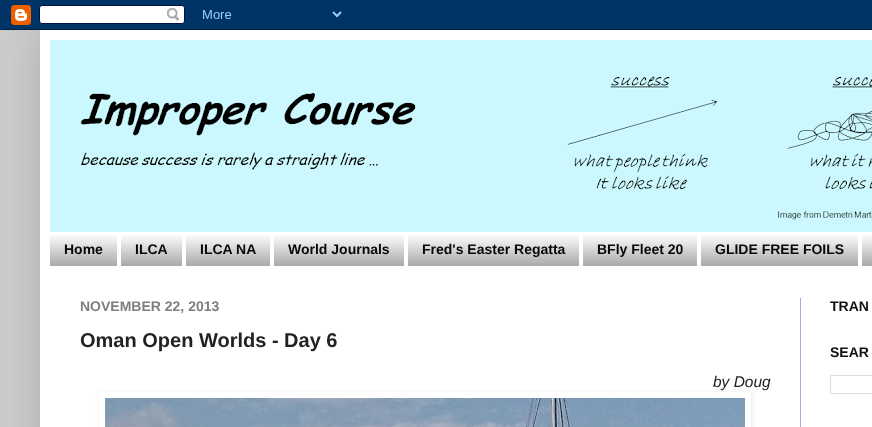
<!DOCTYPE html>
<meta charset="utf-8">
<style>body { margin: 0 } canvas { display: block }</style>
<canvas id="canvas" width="872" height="427"></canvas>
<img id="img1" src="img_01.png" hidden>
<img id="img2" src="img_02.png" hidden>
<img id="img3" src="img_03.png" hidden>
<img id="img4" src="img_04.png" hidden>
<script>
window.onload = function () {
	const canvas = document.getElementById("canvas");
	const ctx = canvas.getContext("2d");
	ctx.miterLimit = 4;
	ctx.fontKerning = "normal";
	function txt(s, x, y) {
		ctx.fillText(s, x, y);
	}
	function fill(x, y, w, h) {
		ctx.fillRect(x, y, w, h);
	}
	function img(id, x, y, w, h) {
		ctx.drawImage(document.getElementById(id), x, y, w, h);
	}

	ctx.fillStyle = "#CCCCCC";
	fill(0, 0, 872, 427);
	ctx.fillStyle = "rgba(0, 0, 0, 0.15)";
	ctx.filter = "blur(20px)";
	ctx.beginPath();
	ctx.rect(40, 30, 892, 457);
	ctx.fill();
	ctx.filter = "none";
	img("img1", 0, 0, 872, 30);
	ctx.fillStyle = "#FFFFFF";
	fill(40, 30, 832, 397);
	img("img2", 50, 40, 822, 192);
	ctx.fillStyle = "#999999";
	fill(50, 234, 822, 32);
	img("img3", 50, 233, 822, 33);
	ctx.fillStyle = "#FFFFFF";
	fill(117, 233, 4, 33);
	fill(182, 233, 4, 33);
	fill(270, 233, 4, 33);
	fill(404, 233, 4, 33);
	fill(579, 233, 4, 33);
	fill(697, 233, 4, 33);
	fill(858, 233, 4, 33);
	ctx.fillStyle = "#A1AEDD";
	fill(800, 298, 1, 129);
	ctx.save();
	ctx.beginPath();
	ctx.moveTo(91, 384);
	ctx.lineTo(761, 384);
	ctx.lineTo(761, 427);
	ctx.lineTo(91, 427);
	ctx.closePath();
	ctx.moveTo(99, 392);
	ctx.lineTo(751, 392);
	ctx.lineTo(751, 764);
	ctx.lineTo(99, 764);
	ctx.closePath();
	ctx.clip("evenodd");
	ctx.fillStyle = "rgba(0, 0, 0, 0.1)";
	ctx.filter = "blur(2.5px)";
	ctx.beginPath();
	ctx.rect(100, 393, 652, 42);
	ctx.fill();
	ctx.filter = "none";
	ctx.restore();
	img("img4", 105, 398, 640, 29);
	ctx.strokeStyle = "#DDDDDD";
	ctx.strokeRect(830.5, 375.5, 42, 18);
	ctx.font = "bold 14px Liberation Sans";
	ctx.fillStyle = "#080808";
	txt("Home", 64, 254);
	txt("ILCA", 135, 254);
	txt("ILCA NA", 200, 254);
	txt("World Journals", 288, 254);
	txt("Fred's Easter Regatta", 422, 254);
	txt("BFly Fleet 20", 597, 254);
	txt("GLIDE FREE FOILS", 715, 254);
	ctx.fillStyle = "#7F7F7F";
	txt("NOVEMBER 22, 2013", 80, 311);
	ctx.font = "bold 20px Liberation Sans";
	ctx.fillStyle = "#222222";
	txt("Oman Open Worlds - Day 6", 80, 347);
	ctx.font = "italic 15.5px Liberation Sans";
	txt("by Doug", 713, 387);
	ctx.font = "bold 14px Liberation Sans";
	ctx.fillStyle = "#111111";
	txt("TRAN", 830, 311);
	txt("SEAR", 830, 357);
};
</script>
